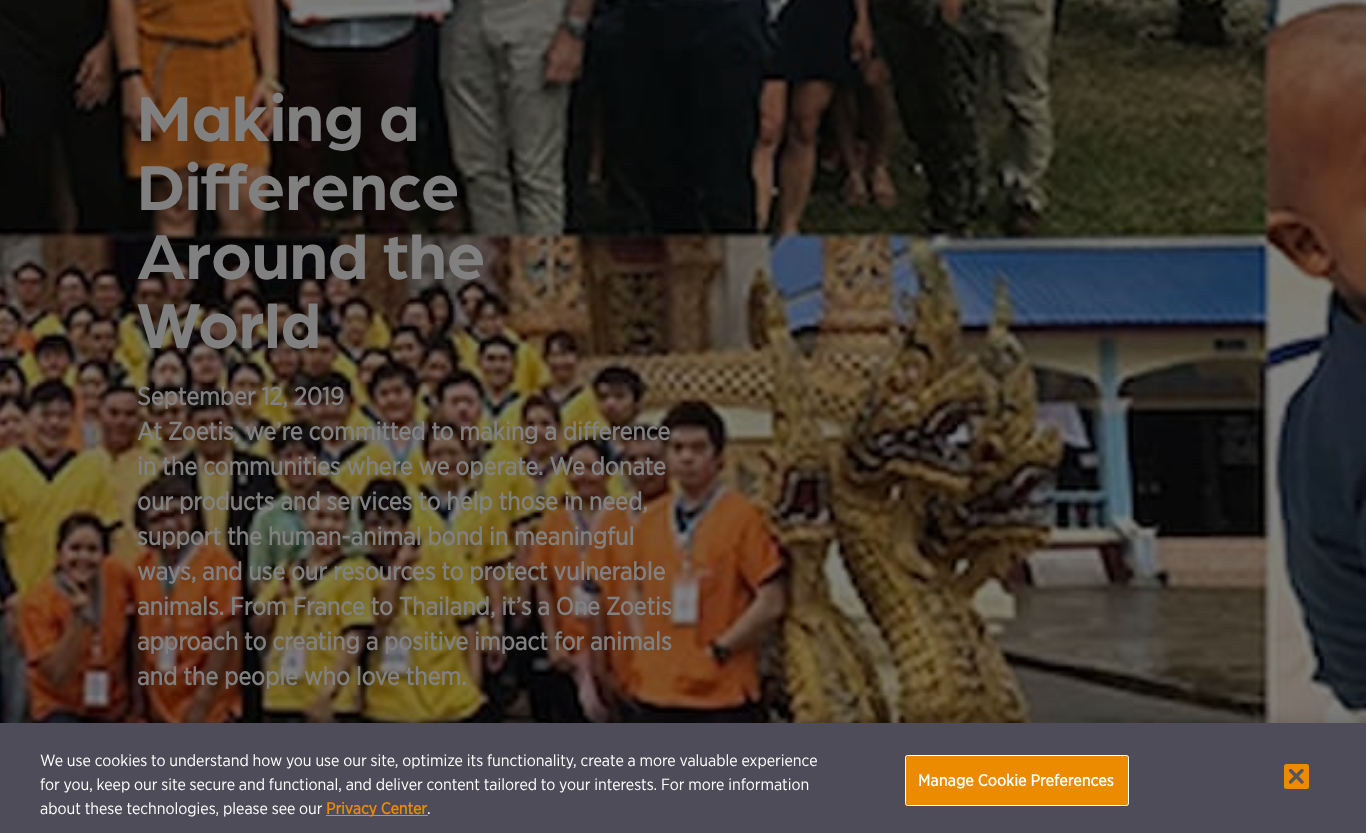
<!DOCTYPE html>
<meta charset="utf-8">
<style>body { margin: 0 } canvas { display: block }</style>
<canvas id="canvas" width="1366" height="833"></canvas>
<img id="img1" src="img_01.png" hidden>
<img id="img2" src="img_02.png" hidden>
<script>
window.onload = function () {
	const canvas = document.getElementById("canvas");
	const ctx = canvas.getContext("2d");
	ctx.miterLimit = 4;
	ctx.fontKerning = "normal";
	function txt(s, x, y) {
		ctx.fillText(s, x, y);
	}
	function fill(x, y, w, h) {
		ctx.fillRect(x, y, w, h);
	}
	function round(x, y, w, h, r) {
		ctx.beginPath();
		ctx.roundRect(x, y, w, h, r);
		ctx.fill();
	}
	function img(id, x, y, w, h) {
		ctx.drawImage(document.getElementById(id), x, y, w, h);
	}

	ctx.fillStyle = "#FFFFFF";
	fill(0, 0, 1366, 833);
	img("img1", 0, 0, 1366, 723);
	ctx.fillStyle = "rgba(0, 0, 0, 0.2)";
	ctx.filter = "blur(11px)";
	ctx.beginPath();
	ctx.rect(0, 723, 1366, 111);
	ctx.fill();
	ctx.filter = "none";
	ctx.fillStyle = "#4F4C5A";
	fill(0, 723, 1366, 110);
	ctx.fillStyle = "#ED8B00";
	fill(326, 815, 102, 1);
	ctx.beginPath();
	ctx.roundRect(905.5, 755.5, 223, 50, 2);
	ctx.fill();
	ctx.strokeStyle = "#FFFFFF";
	ctx.stroke();
	round(1284, 764, 25, 25, 2.5);
	img("img2", 1289, 769, 15, 15);
	ctx.font = "bold 67.5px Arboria";
	ctx.fillStyle = "#808080";
	txt("Making a", 137, 141);
	txt("Difference", 137, 210);
	txt("Around the", 137, 279);
	txt("World", 137, 348);
	ctx.font = "bold 25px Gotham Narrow";
	txt("September 12, 2019", 137, 405);
	txt("At Zoetis, we’re committed to making a difference", 137, 440);
	txt("in the communities where we operate. We donate", 137, 475);
	txt("our products and services to help those in need,", 137, 510);
	txt("support the human-animal bond in meaningful", 137, 545);
	txt("ways, and use our resources to protect vulnerable", 137, 580);
	txt("animals. From France to Thailand, it’s a One Zoetis", 137, 615);
	txt("approach to creating a positive impact for animals", 137, 650);
	txt("and the people who love them.", 137, 685);
	ctx.font = "16.25px Gotham Narrow";
	ctx.fillStyle = "#FFFFFF";
	txt("We use cookies to understand how you use our site, optimize its functionality, create a more valuable experience", 40, 766);
	txt("for you, keep our site secure and functional, and deliver content tailored to your interests. For more information", 40, 790);
	txt("about these technologies, please see our", 40, 814);
	ctx.font = "bold 16.25px Gotham Narrow";
	ctx.fillStyle = "#ED8B00";
	txt("Privacy Center", 326, 814);
	ctx.font = "16.25px Gotham Narrow";
	ctx.fillStyle = "#FFFFFF";
	txt(".", 427, 814);
	ctx.letterSpacing = "0.15px";
	ctx.font = "bold 16.25px Gotham Narrow";
	txt("Manage Cookie Preferences", 918, 786);
};
</script>
